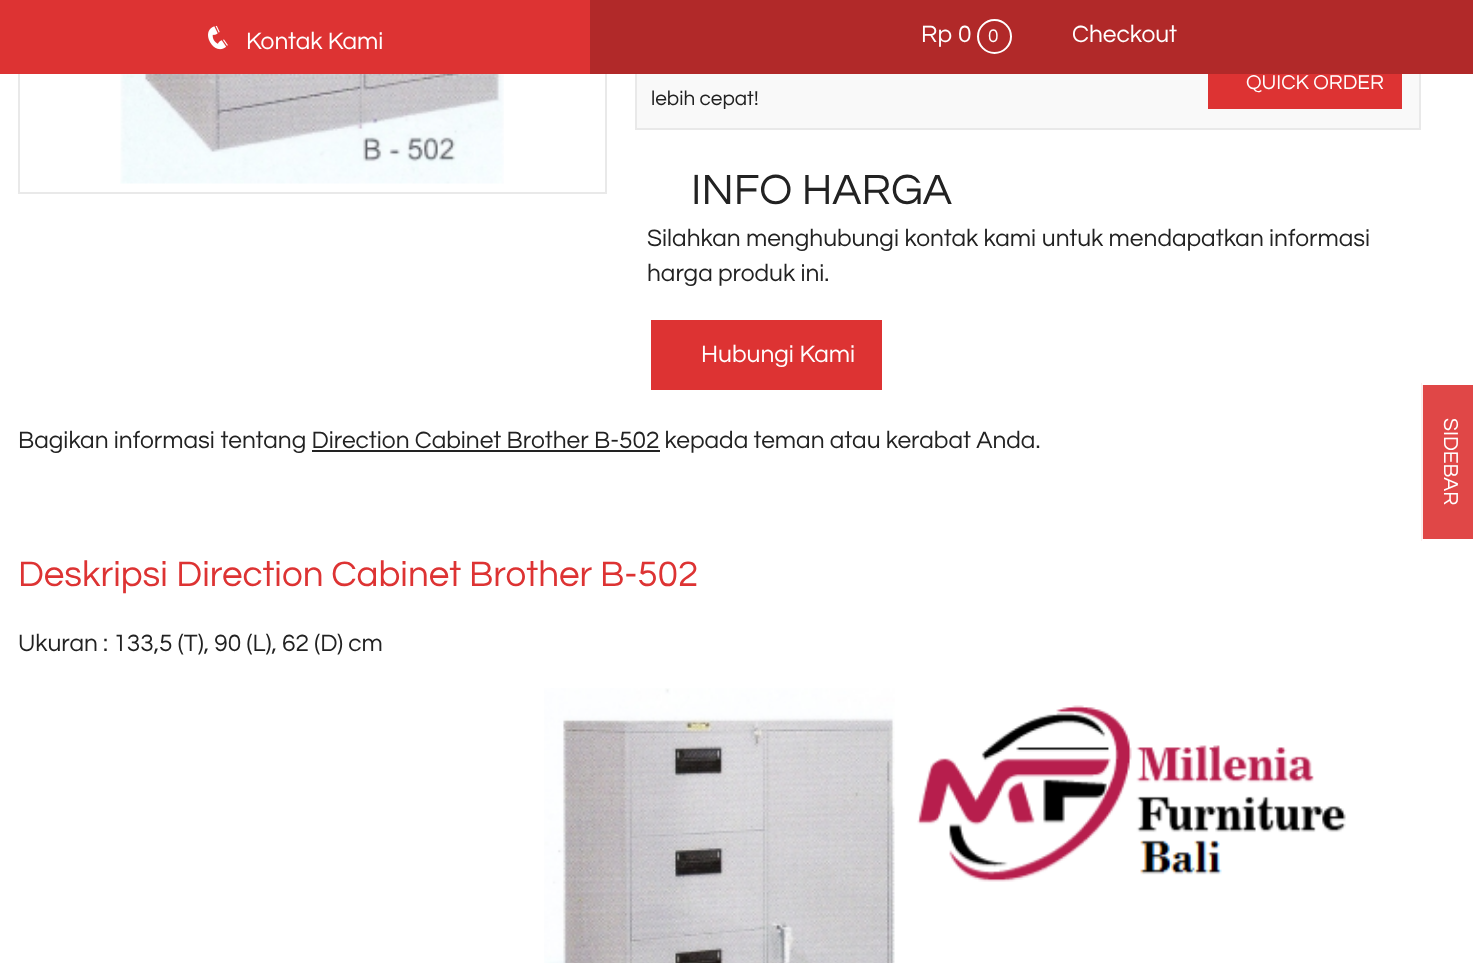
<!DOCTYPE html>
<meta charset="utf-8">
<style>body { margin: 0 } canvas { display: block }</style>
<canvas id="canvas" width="1473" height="963"></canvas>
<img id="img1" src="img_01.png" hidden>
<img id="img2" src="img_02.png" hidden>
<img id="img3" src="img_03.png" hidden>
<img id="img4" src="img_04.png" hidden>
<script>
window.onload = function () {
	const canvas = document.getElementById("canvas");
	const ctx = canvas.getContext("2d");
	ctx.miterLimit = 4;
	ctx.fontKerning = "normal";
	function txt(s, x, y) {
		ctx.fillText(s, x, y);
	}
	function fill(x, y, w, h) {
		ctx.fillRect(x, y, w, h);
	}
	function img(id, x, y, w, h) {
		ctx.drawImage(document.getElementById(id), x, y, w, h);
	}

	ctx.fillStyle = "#FFFFFF";
	fill(0, 0, 1473, 963);
	ctx.strokeStyle = "#E9E9E9";
	ctx.lineWidth = 2;
	ctx.strokeRect(19, -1, 587, 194);
	ctx.fillStyle = "#DD3333";
	fill(0, 0, 590, 74);
	img("img1", 208, 25, 20, 25);
	ctx.fillStyle = "#F9F9F9";
	fill(637, 74, 782, 54);
	ctx.strokeRect(636, 40, 784, 89);
	ctx.fillStyle = "#B12929";
	fill(590, 0, 883, 74);
	ctx.beginPath();
	ctx.arc(994.5, 36.5, 16.5, 0, Math.PI * 2);
	ctx.strokeStyle = "#FFFFFF";
	ctx.stroke();
	img("img2", 120, 74, 384, 110);
	ctx.fillStyle = "#DD3333";
	fill(1208, 74, 194, 35);
	fill(651, 320, 231, 70);
	ctx.fillStyle = "#222222";
	fill(312, 450, 348, 2);
	img("img3", 544, 688, 351, 275);
	ctx.fillStyle = "#E04747";
	fill(1421, 383, 52, 158);
	ctx.beginPath();
	ctx.moveTo(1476, 384);
	ctx.lineTo(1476, 540);
	ctx.lineTo(1422, 540);
	ctx.lineTo(1422, 384);
	ctx.closePath();
	ctx.lineWidth = 1.8;
	ctx.stroke();
	img("img4", 917, 705, 429, 177);
	ctx.font = "24.5px Questrial";
	ctx.fillStyle = "#FFFFFF";
	txt("Kontak Kami", 246, 49);
	txt("Rp 0", 921, 42);
	ctx.font = "19px Questrial";
	txt("0", 988, 42);
	ctx.font = "24.5px Questrial";
	txt("Checkout", 1072, 42);
	ctx.font = "20.75px Questrial";
	txt("QUICK ORDER", 1246, 89);
	ctx.fillStyle = "#222222";
	txt("lebih cepat!", 651, 105);
	ctx.font = "44px Questrial";
	txt("INFO HARGA", 691, 204);
	ctx.font = "24.5px Questrial";
	txt("Silahkan menghubungi kontak kami untuk mendapatkan informasi", 647, 246);
	txt("harga produk ini.", 647, 281);
	ctx.fillStyle = "#FFFFFF";
	txt("Hubungi Kami", 701, 362);
	ctx.fillStyle = "#222222";
	txt("Bagikan informasi tentang Direction Cabinet Brother B-502 kepada teman atau kerabat Anda.", 18, 448);
	ctx.font = "36.75px Questrial";
	ctx.fillStyle = "#DD3333";
	txt("Deskripsi Direction Cabinet Brother B-502", 18, 586);
	ctx.font = "24.5px Questrial";
	ctx.fillStyle = "#222222";
	txt("Ukuran : 133,5 (T), 90 (L), 62 (D) cm", 18, 651);
	ctx.font = "21px Questrial";
	ctx.fillStyle = "#FFFFFF";
	ctx.save();
	ctx.translate(1444, 418);
	ctx.rotate(90 * Math.PI / 180);
	ctx.fillText("SIDEBAR", 0, 0);
	ctx.restore();
};
</script>
